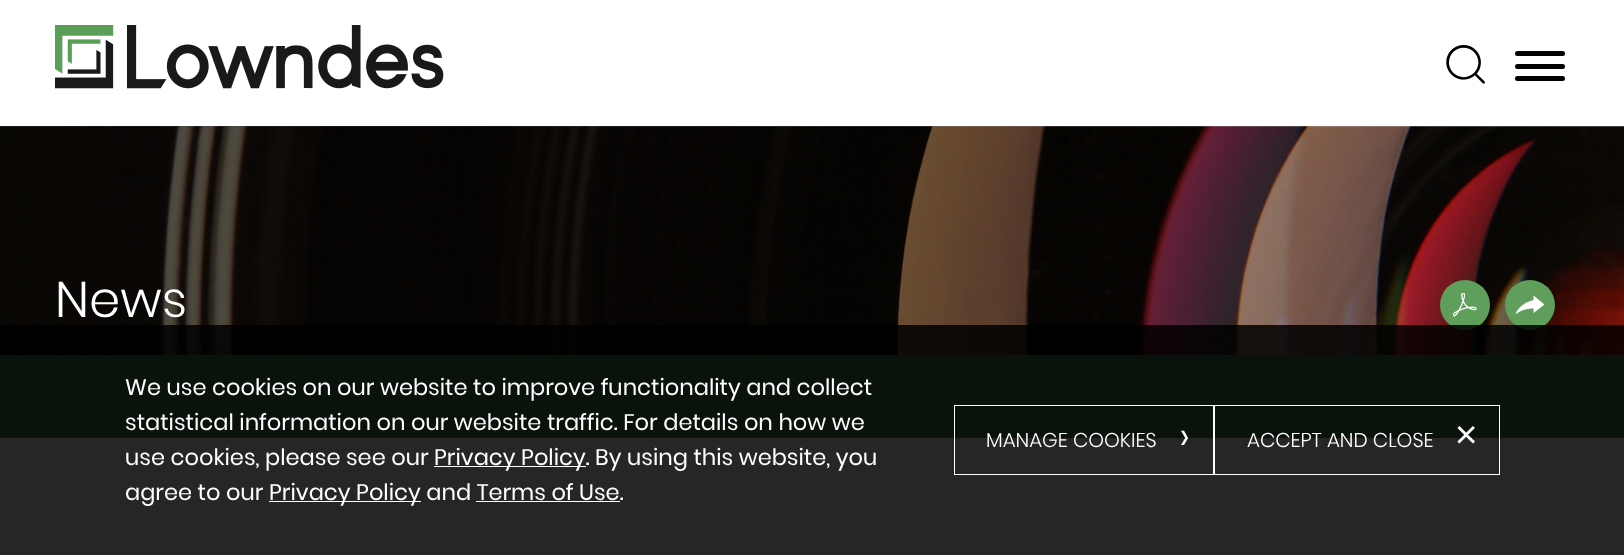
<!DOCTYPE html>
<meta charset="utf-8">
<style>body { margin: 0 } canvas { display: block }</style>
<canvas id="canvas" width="1624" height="555"></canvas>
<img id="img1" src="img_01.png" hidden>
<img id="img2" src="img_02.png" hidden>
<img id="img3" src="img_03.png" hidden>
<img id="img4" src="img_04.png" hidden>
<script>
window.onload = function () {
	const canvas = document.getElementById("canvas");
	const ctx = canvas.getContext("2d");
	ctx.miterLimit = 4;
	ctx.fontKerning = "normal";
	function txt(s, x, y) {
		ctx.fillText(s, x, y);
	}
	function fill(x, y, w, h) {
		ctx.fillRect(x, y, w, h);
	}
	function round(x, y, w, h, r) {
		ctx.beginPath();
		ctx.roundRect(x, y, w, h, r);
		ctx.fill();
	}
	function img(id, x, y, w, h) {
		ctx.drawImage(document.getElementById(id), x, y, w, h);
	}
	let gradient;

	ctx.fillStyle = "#FFFFFF";
	fill(0, 0, 1624, 555);
	img("img1", 55, 25, 389, 64);
	img("img2", 1446, 45, 39, 39);
	ctx.fillStyle = "#000000";
	round(1515, 51, 50, 5, 2.5);
	round(1515, 64, 50, 5, 2.5);
	round(1515, 76, 50, 5, 2.5);
	img("img3", 0, 126, 1624, 229);
	gradient = ctx.createLinearGradient(0, 241, 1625, 241);
	gradient.addColorStop(0.3, "rgba(0, 0, 0, 0.7)");
	gradient.addColorStop(1, "rgba(0, 0, 0, 0)");
	ctx.fillStyle = gradient;
	fill(0, 126, 1590, 229);
	ctx.fillStyle = "#5F9F5B";
	ctx.beginPath();
	ctx.arc(1465, 305, 25, 0, Math.PI * 2);
	ctx.fill();
	img("img4", 1453, 293, 24, 24);
	ctx.beginPath();
	ctx.arc(1530, 305, 25, 0, Math.PI * 2);
	ctx.fill();
	ctx.fillStyle = "#FFFFFF";
	ctx.beginPath();
	ctx.moveTo(1533.5, 295.5);
	ctx.lineTo(1544.5, 304.5);
	ctx.lineTo(1533.5, 313);
	ctx.lineTo(1533.5, 308.5);
	ctx.bezierCurveTo(1533, 308.5, 1522.5, 308, 1515.5, 314.5);
	ctx.bezierCurveTo(1518.5, 305.5, 1527.5, 301.5, 1533.5, 300);
	ctx.closePath();
	ctx.fill();
	ctx.fillStyle = "#45824E";
	fill(0, 355, 1624, 83);
	ctx.fillStyle = "rgba(0, 0, 0, 0.85)";
	fill(0, 325, 1624, 230);
	ctx.fillStyle = "#FFFFFF";
	fill(434, 466, 152, 1);
	fill(269, 501, 152, 1);
	fill(476, 501, 144, 1);
	ctx.strokeStyle = "#FFFFFF";
	ctx.strokeRect(954.5, 405.5, 259, 69);
	ctx.strokeRect(1214.5, 405.5, 285, 69);
	ctx.font = "300 50px Poppins";
	txt("News", 55, 317);
	ctx.font = "22.5px Poppins";
	txt("We use cookies on our website to improve functionality and collect", 125, 395);
	txt("statistical information on our website traffic. For details on how we", 125, 430);
	txt("use cookies, please see our", 125, 465);
	txt("Privacy Policy. By using this website, you", 434, 465);
	txt("agree to our", 125, 500);
	txt("Privacy Policy and Terms of Use.", 269, 500);
	ctx.font = "300 20px Poppins";
	txt("MANAGE COOKIES", 986, 447);
	ctx.font = "300 41px Poppins";
	txt("›", 1179, 450);
	ctx.font = "300 20px Poppins";
	txt("ACCEPT AND CLOSE", 1247, 447);
	ctx.font = "300 41px Poppins";
	txt("×", 1456, 450);
};
</script>
